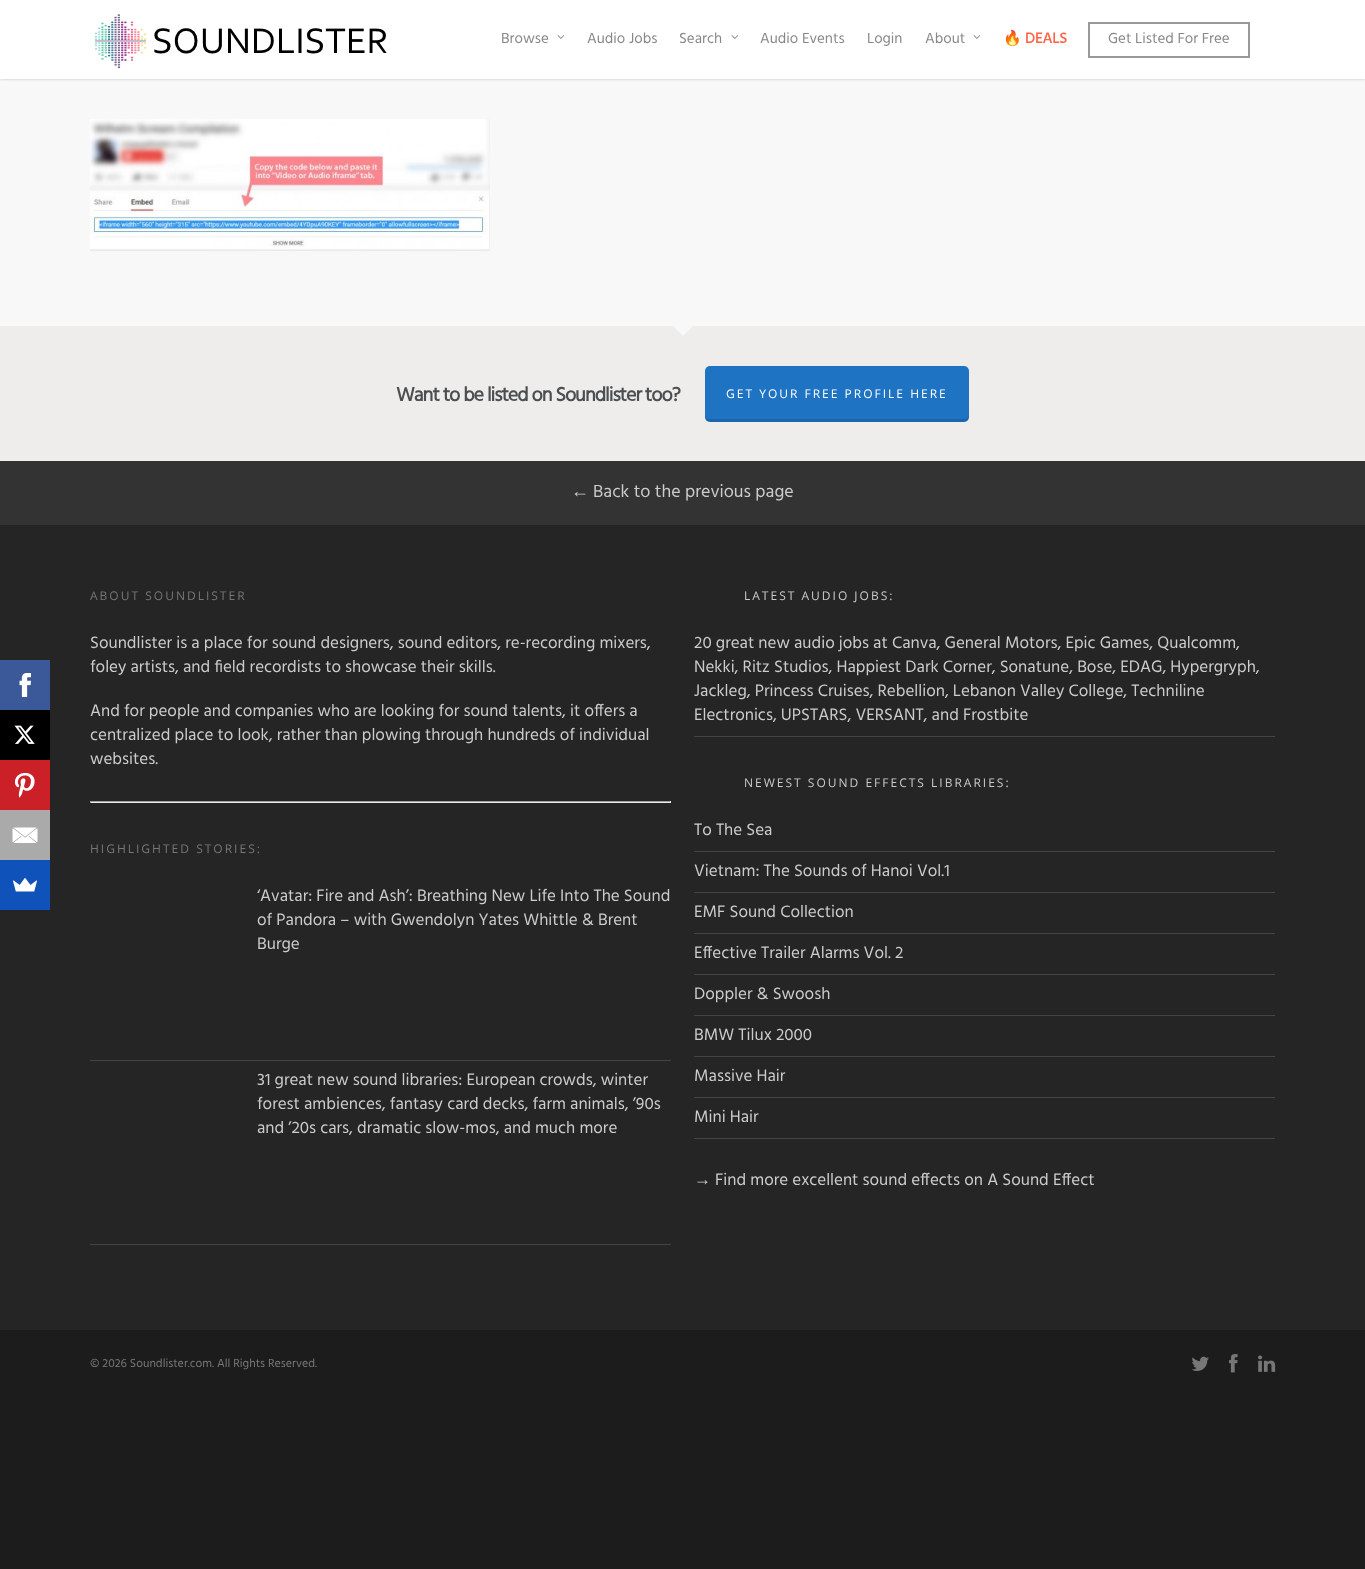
<!DOCTYPE html>
<meta charset="utf-8">
<style>body { margin: 0 } canvas { display: block }</style>
<canvas id="canvas" width="1365" height="1569"></canvas>
<img id="img1" src="img_01.png" hidden>
<img id="img2" src="img_02.png" hidden>
<img id="img3" src="img_03.png" hidden>
<img id="img4" src="img_04.png" hidden>
<img id="img5" src="img_05.png" hidden>
<img id="img6" src="img_06.png" hidden>
<img id="img7" src="img_07.png" hidden>
<img id="img8" src="img_08.png" hidden>
<img id="img9" src="img_09.png" hidden>
<img id="img10" src="img_10.png" hidden>
<img id="img11" src="img_11.png" hidden>
<script>
window.onload = function () {
	const canvas = document.getElementById("canvas");
	const ctx = canvas.getContext("2d");
	ctx.miterLimit = 4;
	ctx.fontKerning = "normal";
	function txt(s, x, y) {
		ctx.fillText(s, x, y);
	}
	function fill(x, y, w, h) {
		ctx.fillRect(x, y, w, h);
	}
	function round(x, y, w, h, r) {
		ctx.beginPath();
		ctx.roundRect(x, y, w, h, r);
		ctx.fill();
	}
	function img(id, x, y, w, h) {
		ctx.drawImage(document.getElementById(id), x, y, w, h);
	}

	ctx.fillStyle = "#1C1C1C";
	fill(0, 0, 1365, 1569);
	ctx.fillStyle = "#F8F8F8";
	fill(0, 79, 1365, 247);
	ctx.fillStyle = "rgba(0, 0, 0, 0.22)";
	ctx.filter = "blur(1.5px)";
	ctx.beginPath();
	ctx.rect(0, 0, 1365, 79);
	ctx.fill();
	ctx.filter = "none";
	ctx.fillStyle = "#FFFFFF";
	fill(0, 0, 1365, 79);
	img("img1", 94, 14, 293, 55);
	img("img2", 557, 35, 8, 4);
	img("img2", 731, 35, 8, 4);
	img("img2", 973, 35, 8, 4);
	ctx.strokeStyle = "#999999";
	ctx.lineWidth = 2;
	ctx.strokeRect(1089, 23, 160, 34);
	ctx.fillStyle = "#252525";
	fill(0, 525, 1365, 805);
	ctx.fillStyle = "#3B5998";
	fill(0, 660, 50, 50);
	img("img3", 19, 673, 12, 24);
	ctx.fillStyle = "#000000";
	fill(0, 710, 50, 50);
	img("img4", 14, 725, 21, 19);
	ctx.fillStyle = "#CB2027";
	fill(0, 760, 50, 50);
	img("img5", 15, 773, 20, 25);
	ctx.fillStyle = "#AAAAAA";
	fill(0, 810, 50, 50);
	img("img6", 12, 827, 26, 16);
	ctx.fillStyle = "#0F52BA";
	fill(0, 860, 50, 50);
	img("img7", 13, 878, 24, 14);
	img("img8", 90, 119, 400, 132);
	ctx.fillStyle = "#EEEDEC";
	fill(0, 326, 1365, 135);
	ctx.fillStyle = "#F8F8F8";
	ctx.beginPath();
	ctx.moveTo(673, 326);
	ctx.lineTo(693, 326);
	ctx.lineTo(683, 336);
	ctx.closePath();
	ctx.fill();
	ctx.fillStyle = "#1E73C3";
	round(705, 366, 264, 56, 5);
	ctx.fillStyle = "rgba(0, 0, 0, 0.1)";
	ctx.beginPath();
	ctx.moveTo(705, 414);
	ctx.lineTo(705, 417);
	ctx.bezierCurveTo(705, 420, 707, 422, 710, 422);
	ctx.lineTo(964, 422);
	ctx.bezierCurveTo(967, 422, 969, 420, 969, 417);
	ctx.lineTo(969, 414);
	ctx.bezierCurveTo(969, 417, 967, 419, 964, 419);
	ctx.lineTo(710, 419);
	ctx.bezierCurveTo(707, 419, 705, 417, 705, 414);
	ctx.closePath();
	ctx.fill();
	ctx.fillStyle = "#333333";
	fill(0, 461, 1365, 64);
	ctx.fillStyle = "#9F9F9F";
	fill(90, 801, 581, 1);
	ctx.fillStyle = "#EEEEEE";
	fill(670, 801, 1, 2);
	fill(90, 802, 581, 1);
	ctx.fillStyle = "#9F9F9F";
	fill(90, 801, 1, 2);
	ctx.fillStyle = "#444444";
	fill(90, 1060, 581, 1);
	fill(90, 1244, 581, 1);
	fill(694, 736, 581, 1);
	fill(694, 851, 581, 1);
	fill(694, 892, 581, 1);
	fill(694, 933, 581, 1);
	fill(694, 974, 581, 1);
	fill(694, 1015, 581, 1);
	fill(694, 1056, 581, 1);
	fill(694, 1097, 581, 1);
	fill(694, 1138, 581, 1);
	img("img9", 1191, 1356, 18, 15);
	img("img10", 1229, 1354, 9, 19);
	img("img11", 1258, 1355, 18, 17);
	ctx.font = "15px Hind";
	ctx.fillStyle = "#888888";
	txt("Browse", 501, 43);
	txt("Audio Jobs", 587, 43);
	txt("Search", 679, 43);
	txt("Audio Events", 760, 43);
	txt("Login", 867, 43);
	txt("About", 925, 43);
	ctx.font = "15px Noto Color Emoji";
	txt("🔥", 1003, 43);
	ctx.font = "bold 15px Hind";
	ctx.fillStyle = "#FF6347";
	txt("DEALS", 1025, 43);
	ctx.font = "15px Hind";
	ctx.fillStyle = "#888888";
	txt("Get Listed For Free", 1108, 43);
	ctx.letterSpacing = "-1px";
	ctx.font = "bold 20px Hind";
	ctx.fillStyle = "#4B4F52";
	txt("Want to be listed on Soundlister too?", 396, 401);
	ctx.letterSpacing = "2px";
	ctx.font = "12px Open Sans";
	ctx.fillStyle = "#FFFFFF";
	txt("GET YOUR FREE PROFILE HERE", 726, 398);
	ctx.letterSpacing = "0px";
	ctx.font = "18px Liberation Serif";
	ctx.fillStyle = "#CCCCCC";
	txt("←", 571, 497);
	ctx.font = "18px Hind";
	txt("Back to the previous page", 593, 497);
	ctx.letterSpacing = "2px";
	ctx.font = "12px Open Sans";
	ctx.fillStyle = "#777777";
	txt("ABOUT SOUNDLISTER", 90, 600);
	ctx.letterSpacing = "0px";
	ctx.font = "17px Hind";
	ctx.fillStyle = "#CCCCCC";
	txt("Soundlister is a place for sound designers, sound editors, re-recording mixers,", 90, 648);
	txt("foley artists, and field recordists to showcase their skills.", 90, 672);
	txt("And for people and companies who are looking for sound talents, it offers a", 90, 716);
	txt("centralized place to look, rather than plowing through hundreds of individual", 90, 740);
	txt("websites.", 90, 764);
	ctx.letterSpacing = "2px";
	ctx.font = "12px Open Sans";
	ctx.fillStyle = "#777777";
	txt("HIGHLIGHTED STORIES:", 90, 853);
	ctx.letterSpacing = "0px";
	ctx.font = "17px Hind";
	ctx.fillStyle = "#CCCCCC";
	txt("‘Avatar: Fire and Ash’: Breathing New Life Into The Sound", 257, 901);
	txt("of Pandora – with Gwendolyn Yates Whittle & Brent", 257, 925);
	txt("Burge", 257, 949);
	txt("31 great new sound libraries: European crowds, winter", 257, 1085);
	txt("forest ambiences, fantasy card decks, farm animals, ’90s", 257, 1109);
	txt("and ’20s cars, dramatic slow-mos, and much more", 257, 1133);
	ctx.letterSpacing = "2px";
	ctx.font = "12px Open Sans";
	txt("LATEST AUDIO JOBS:", 744, 600);
	ctx.letterSpacing = "0px";
	ctx.font = "17px Hind";
	txt("20 great new audio jobs at Canva, General Motors, Epic Games, Qualcomm,", 694, 648);
	txt("Nekki, Ritz Studios, Happiest Dark Corner, Sonatune, Bose, EDAG, Hypergryph,", 694, 672);
	txt("Jackleg, Princess Cruises, Rebellion, Lebanon Valley College, Techniline", 694, 696);
	txt("Electronics, UPSTARS, VERSANT, and Frostbite", 694, 720);
	ctx.letterSpacing = "2px";
	ctx.font = "12px Open Sans";
	txt("NEWEST SOUND EFFECTS LIBRARIES:", 744, 787);
	ctx.letterSpacing = "0px";
	ctx.font = "17px Hind";
	txt("To The Sea", 694, 835);
	txt("Vietnam: The Sounds of Hanoi Vol.1", 694, 876);
	txt("EMF Sound Collection", 694, 917);
	txt("Effective Trailer Alarms Vol. 2", 694, 958);
	txt("Doppler & Swoosh", 694, 999);
	txt("BMW Tilux 2000", 694, 1040);
	txt("Massive Hair", 694, 1081);
	txt("Mini Hair", 694, 1122);
	ctx.font = "17px Liberation Serif";
	txt("→", 694, 1185);
	ctx.font = "17px Hind";
	txt("Find more excellent sound effects on A Sound Effect", 715, 1185);
	ctx.font = "12px Hind";
	ctx.fillStyle = "#777777";
	txt("© 2026 Soundlister.com. All Rights Reserved.", 90, 1367);
};
</script>
